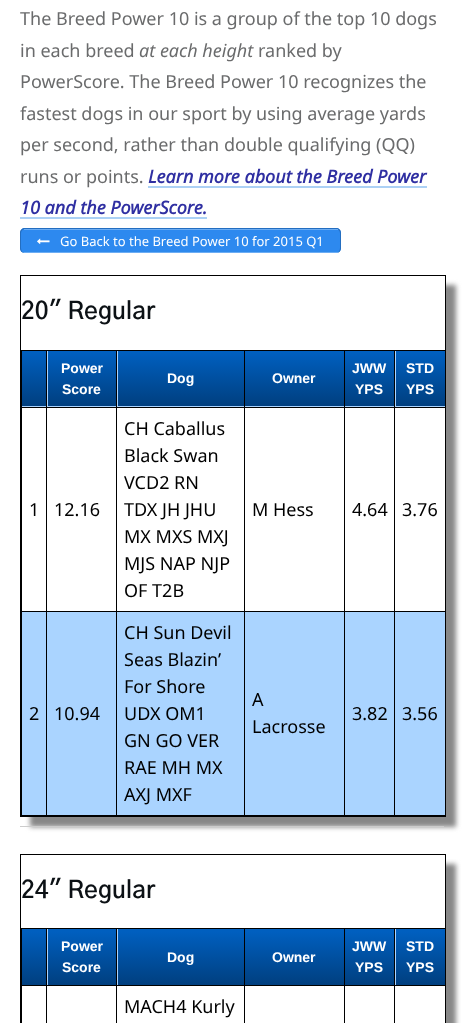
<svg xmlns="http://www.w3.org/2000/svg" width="464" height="1023">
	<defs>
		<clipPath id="clip1"><rect x="20" y="228" width="321" height="25" rx="5" /></clipPath>
		<clipPath id="clip2"><path d="M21 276H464V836H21ZM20 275H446V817H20Z" clip-rule="evenodd" /></clipPath>
		<linearGradient id="g1" gradientUnits="userSpaceOnUse" x1="22" y1="350" x2="22" y2="406"><stop offset="0.05" stop-color="#005FBF" /><stop offset="1" stop-color="#003F7F" /></linearGradient>
		<linearGradient id="g2" gradientUnits="userSpaceOnUse" x1="48" y1="350" x2="48" y2="406"><stop offset="0.05" stop-color="#005FBF" /><stop offset="1" stop-color="#003F7F" /></linearGradient>
		<linearGradient id="g3" gradientUnits="userSpaceOnUse" x1="118" y1="350" x2="118" y2="406"><stop offset="0.05" stop-color="#005FBF" /><stop offset="1" stop-color="#003F7F" /></linearGradient>
		<linearGradient id="g4" gradientUnits="userSpaceOnUse" x1="245" y1="350" x2="245" y2="406"><stop offset="0.05" stop-color="#005FBF" /><stop offset="1" stop-color="#003F7F" /></linearGradient>
		<linearGradient id="g5" gradientUnits="userSpaceOnUse" x1="345" y1="350" x2="345" y2="406"><stop offset="0.05" stop-color="#005FBF" /><stop offset="1" stop-color="#003F7F" /></linearGradient>
		<linearGradient id="g6" gradientUnits="userSpaceOnUse" x1="396" y1="350" x2="396" y2="406"><stop offset="0.05" stop-color="#005FBF" /><stop offset="1" stop-color="#003F7F" /></linearGradient>
		<clipPath id="clip3"><rect x="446" y="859" width="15" height="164" /></clipPath>
		<linearGradient id="g7" gradientUnits="userSpaceOnUse" x1="22" y1="929" x2="22" y2="985"><stop offset="0.05" stop-color="#005FBF" /><stop offset="1" stop-color="#003F7F" /></linearGradient>
		<linearGradient id="g8" gradientUnits="userSpaceOnUse" x1="48" y1="929" x2="48" y2="985"><stop offset="0.05" stop-color="#005FBF" /><stop offset="1" stop-color="#003F7F" /></linearGradient>
		<linearGradient id="g9" gradientUnits="userSpaceOnUse" x1="118" y1="929" x2="118" y2="985"><stop offset="0.05" stop-color="#005FBF" /><stop offset="1" stop-color="#003F7F" /></linearGradient>
		<linearGradient id="g10" gradientUnits="userSpaceOnUse" x1="245" y1="929" x2="245" y2="985"><stop offset="0.05" stop-color="#005FBF" /><stop offset="1" stop-color="#003F7F" /></linearGradient>
		<linearGradient id="g11" gradientUnits="userSpaceOnUse" x1="345" y1="929" x2="345" y2="985"><stop offset="0.05" stop-color="#005FBF" /><stop offset="1" stop-color="#003F7F" /></linearGradient>
		<linearGradient id="g12" gradientUnits="userSpaceOnUse" x1="396" y1="929" x2="396" y2="985"><stop offset="0.05" stop-color="#005FBF" /><stop offset="1" stop-color="#003F7F" /></linearGradient>
	</defs>
	<rect width="100%" height="100%" fill="#FFFFFF" />
	<g font-family="Noto Sans" font-size="18" fill="#6A6B6C">
		<text x="20" y="25">The Breed Power 10 is a group of the top 10 dogs</text>
		<text x="20" y="57">in each breed</text>
	</g>
	<text x="139" y="57" font-family="Noto Sans" font-size="18" font-style="italic" fill="#6A6B6C">at each height</text>
	<g font-family="Noto Sans" font-size="18" fill="#6A6B6C">
		<text x="258" y="57">ranked by</text>
		<text x="20" y="88">PowerScore. The Breed Power 10 recognizes the</text>
		<text x="20" y="120">fastest dogs in our sport by using average yards</text>
		<text x="20" y="151">per second, rather than double qualifying (QQ)</text>
		<text x="20" y="183">runs or points.</text>
	</g>
	<text x="148" y="183" font-family="Noto Sans" font-size="18" font-weight="700" font-style="italic" fill="#2F2FA2">Learn more about the Breed Power</text>
	<rect x="148" y="186" width="279" height="2" fill="#ACD1F5" />
	<text x="20" y="214" font-family="Noto Sans" font-size="18" font-weight="700" font-style="italic" fill="#2F2FA2">10 and the PowerScore.</text>
	<rect x="20" y="217" width="187" height="2" fill="#ACD1F5" />
	<rect x="20" y="228" width="321" height="25" rx="5" fill="#2D89EF" />
	<g clip-path="url(#clip1)">
		<rect x="20" y="251" width="321" height="2" fill="#2F8BE7" fill-opacity="0.4" />
	</g>
	<path d="M25 228H336C339 228 341 230 341 233V248C341 251 339 253 336 253H25C22 253 20 251 20 248V233C20 230 22 228 25 228ZM25 229H336C338 229 340 231 340 233V248C340 251 338 253 336 253H25C23 253 21 251 21 248V233C21 231 23 229 25 229Z" fill="#246EC0" fill-rule="evenodd" />
	<rect x="24" y="229" width="314" height="1" fill="#6CADF4" />
	<rect x="24" y="252" width="314" height="1" fill="#6CADF4" />
	<image x="37" y="238" width="13" height="6" href="assets/img1.png" />
	<text x="60" y="246" font-family="Noto Sans" font-size="13" fill="#FFFFFF">Go Back to the Breed Power 10 for 2015 Q1</text>
	<g clip-path="url(#clip2)">
		<rect x="30" y="285" width="426" height="542" fill="#888888" filter="blur(2.5px)" />
	</g>
	<rect x="20.5" y="275.5" width="425" height="541" fill="none" stroke="#000000" />
	<text x="21" y="319" font-family="'Gothic A1'" font-size="24" font-weight="600" fill="#0C1115">20″ Regular</text>
	<rect x="21" y="350" width="425" height="1" fill="#000000" />
	<rect x="21" y="815" width="425" height="1" fill="#000000" />
	<rect x="21" y="350" width="1" height="466" fill="#000000" />
	<rect x="22" y="351" width="423" height="56" fill="#AAD4FF" />
	<rect x="22" y="351" width="24" height="55" fill="url(#g1)" />
	<rect x="22" y="612" width="423" height="203" fill="#AAD4FF" />
	<rect x="394" y="611" width="1" height="205" fill="#000000" />
	<rect x="394" y="611" width="52" height="1" fill="#000000" />
	<rect x="394" y="407" width="1" height="205" fill="#000000" />
	<rect x="394" y="407" width="52" height="1" fill="#000000" />
	<rect x="394" y="350" width="1" height="58" fill="#000000" />
	<rect x="344" y="611" width="1" height="205" fill="#000000" />
	<rect x="344" y="611" width="51" height="1" fill="#000000" />
	<rect x="344" y="407" width="1" height="205" fill="#000000" />
	<rect x="344" y="407" width="51" height="1" fill="#000000" />
	<rect x="344" y="350" width="1" height="58" fill="#000000" />
	<rect x="244" y="611" width="1" height="205" fill="#000000" />
	<rect x="244" y="611" width="101" height="1" fill="#000000" />
	<rect x="244" y="407" width="1" height="205" fill="#000000" />
	<rect x="244" y="407" width="101" height="1" fill="#000000" />
	<rect x="244" y="350" width="1" height="58" fill="#000000" />
	<rect x="116" y="611" width="1" height="205" fill="#000000" />
	<rect x="116" y="611" width="129" height="1" fill="#000000" />
	<rect x="116" y="407" width="1" height="205" fill="#000000" />
	<rect x="116" y="407" width="129" height="1" fill="#000000" />
	<rect x="116" y="350" width="1" height="58" fill="#000000" />
	<rect x="46" y="611" width="1" height="205" fill="#000000" />
	<rect x="46" y="611" width="71" height="1" fill="#000000" />
	<rect x="46" y="407" width="1" height="205" fill="#000000" />
	<rect x="46" y="407" width="71" height="1" fill="#000000" />
	<rect x="46" y="350" width="1" height="58" fill="#000000" />
	<rect x="21" y="407" width="26" height="1" fill="#000000" />
	<rect x="48" y="351" width="68" height="55" fill="url(#g2)" />
	<g font-family="Liberation Sans" font-size="14" font-weight="700" fill="#FFFFFF">
		<text x="61" y="373">Power</text>
		<text x="62" y="394">Score</text>
	</g>
	<rect x="118" y="351" width="126" height="55" fill="url(#g3)" />
	<text x="167" y="383" font-family="Liberation Sans" font-size="14" font-weight="700" fill="#FFFFFF">Dog</text>
	<rect x="245" y="351" width="99" height="55" fill="url(#g4)" />
	<text x="272" y="383" font-family="Liberation Sans" font-size="14" font-weight="700" fill="#FFFFFF">Owner</text>
	<rect x="345" y="351" width="49" height="55" fill="url(#g5)" />
	<g font-family="Liberation Sans" font-size="14" font-weight="700" fill="#FFFFFF">
		<text x="352" y="373">JWW</text>
		<text x="355" y="394">YPS</text>
	</g>
	<rect x="396" y="351" width="49" height="55" fill="url(#g6)" />
	<g font-family="Liberation Sans" font-size="14" font-weight="700" fill="#FFFFFF">
		<text x="406" y="373">STD</text>
		<text x="406" y="394">YPS</text>
	</g>
	<rect x="21" y="611" width="26" height="1" fill="#000000" />
	<g font-family="Noto Sans" font-size="18" fill="#000000">
		<text x="29" y="516">1</text>
		<text x="54" y="516">12.16</text>
		<text x="124" y="435">CH Caballus</text>
		<text x="124" y="462">Black Swan</text>
		<text x="124" y="489">VCD2 RN</text>
		<text x="124" y="516">TDX JH JHU</text>
		<text x="124" y="543">MX MXS MXJ</text>
		<text x="124" y="570">MJS NAP NJP</text>
		<text x="124" y="597">OF T2B</text>
		<text x="252" y="516">M Hess</text>
		<text x="352" y="516">4.64</text>
		<text x="402" y="516">3.76</text>
		<text x="29" y="720">2</text>
		<text x="54" y="720">10.94</text>
		<text x="124" y="639">CH Sun Devil</text>
		<text x="124" y="666">Seas Blazin’</text>
		<text x="124" y="693">For Shore</text>
		<text x="124" y="720">UDX OM1</text>
		<text x="124" y="747">GN GO VER</text>
		<text x="124" y="774">RAE MH MX</text>
		<text x="124" y="801">AXJ MXF</text>
		<text x="252" y="706">A</text>
		<text x="252" y="733">Lacrosse</text>
		<text x="352" y="720">3.82</text>
		<text x="402" y="720">3.56</text>
	</g>
	<rect x="20" y="826" width="424" height="1" fill="#CCCCCC" />
	<g clip-path="url(#clip3)">
		<rect x="30" y="864" width="426" height="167" fill="#888888" filter="blur(2.5px)" />
	</g>
	<rect x="20.5" y="854.5" width="425" height="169" fill="none" stroke="#000000" />
	<text x="21" y="898" font-family="'Gothic A1'" font-size="24" font-weight="600" fill="#0C1115">24″ Regular</text>
	<rect x="21" y="928" width="425" height="1" fill="#000000" />
	<rect x="21" y="928" width="1" height="95" fill="#000000" />
	<rect x="47" y="929" width="349" height="56" fill="#AAD4FF" />
	<rect x="22" y="929" width="24" height="56" fill="url(#g7)" />
	<rect x="394" y="985" width="1" height="38" fill="#000000" />
	<rect x="394" y="985" width="52" height="1" fill="#000000" />
	<rect x="394" y="928" width="1" height="58" fill="#000000" />
	<rect x="344" y="985" width="1" height="38" fill="#000000" />
	<rect x="344" y="985" width="51" height="1" fill="#000000" />
	<rect x="344" y="928" width="1" height="58" fill="#000000" />
	<rect x="244" y="985" width="1" height="38" fill="#000000" />
	<rect x="244" y="985" width="101" height="1" fill="#000000" />
	<rect x="244" y="928" width="1" height="58" fill="#000000" />
	<rect x="116" y="985" width="1" height="38" fill="#000000" />
	<rect x="116" y="985" width="129" height="1" fill="#000000" />
	<rect x="116" y="928" width="1" height="58" fill="#000000" />
	<rect x="46" y="985" width="1" height="38" fill="#000000" />
	<rect x="46" y="985" width="71" height="1" fill="#000000" />
	<rect x="46" y="928" width="1" height="58" fill="#000000" />
	<rect x="21" y="985" width="26" height="1" fill="#000000" />
	<rect x="48" y="929" width="68" height="56" fill="url(#g8)" />
	<g font-family="Liberation Sans" font-size="14" font-weight="700" fill="#FFFFFF">
		<text x="61" y="951">Power</text>
		<text x="62" y="972">Score</text>
	</g>
	<rect x="118" y="929" width="126" height="56" fill="url(#g9)" />
	<text x="167" y="962" font-family="Liberation Sans" font-size="14" font-weight="700" fill="#FFFFFF">Dog</text>
	<rect x="245" y="929" width="99" height="56" fill="url(#g10)" />
	<text x="272" y="962" font-family="Liberation Sans" font-size="14" font-weight="700" fill="#FFFFFF">Owner</text>
	<rect x="345" y="929" width="49" height="56" fill="url(#g11)" />
	<g font-family="Liberation Sans" font-size="14" font-weight="700" fill="#FFFFFF">
		<text x="352" y="951">JWW</text>
		<text x="355" y="972">YPS</text>
	</g>
	<rect x="396" y="929" width="49" height="56" fill="url(#g12)" />
	<g font-family="Liberation Sans" font-size="14" font-weight="700" fill="#FFFFFF">
		<text x="406" y="951">STD</text>
		<text x="406" y="972">YPS</text>
	</g>
	<text x="124" y="1013" font-family="Noto Sans" font-size="18" fill="#000000">MACH4 Kurly</text>
</svg>
